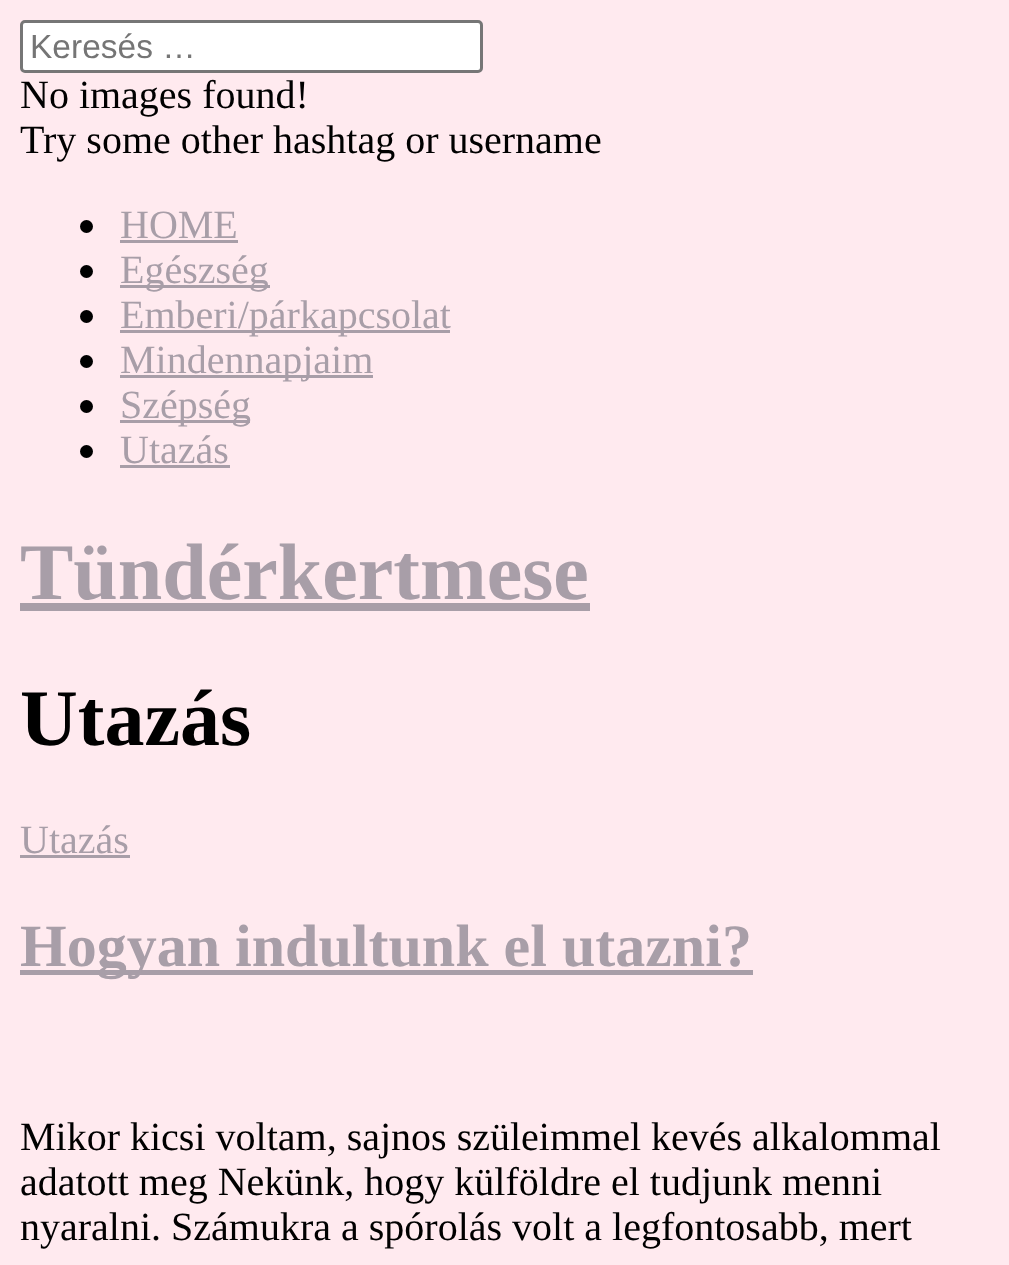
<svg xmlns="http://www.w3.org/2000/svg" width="1009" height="1265">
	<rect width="100%" height="100%" fill="#FFEAEF" />
	<rect x="21.5" y="21.5" width="460" height="50" rx="3.5" fill="#FFFFFF" stroke="#767676" stroke-width="3" />
	<text x="30" y="58" font-family="Liberation Sans" font-size="33.5" fill="#757575">Keresés …</text>
	<g font-family="Liberation Serif" font-size="40" fill="#000000">
		<text x="20" y="108">No images found!</text>
		<text x="20" y="153">Try some other hashtag or username</text>
	</g>
	<circle cx="86.5" cy="226.5" r="6.5" fill="#000000" />
	<text x="120" y="238" font-family="Liberation Serif" font-size="40" fill="#A89EA8">HOME</text>
	<rect x="120" y="240" width="118" height="3" fill="#A89EA8" />
	<circle cx="86.5" cy="271.5" r="6.5" fill="#000000" />
	<rect x="120" y="285" width="150" height="3" fill="#A89EA8" />
	<text x="120" y="283" font-family="Liberation Serif" font-size="40" fill="#A89EA8">Egészség</text>
	<circle cx="86.5" cy="316.5" r="6.5" fill="#000000" />
	<rect x="120" y="330" width="330" height="3" fill="#A89EA8" />
	<text x="120" y="328" font-family="Liberation Serif" font-size="40" fill="#A89EA8">Emberi/párkapcsolat</text>
	<circle cx="86.5" cy="361.5" r="6.5" fill="#000000" />
	<rect x="120" y="375" width="253" height="3" fill="#A89EA8" />
	<text x="120" y="373" font-family="Liberation Serif" font-size="40" fill="#A89EA8">Mindennapjaim</text>
	<circle cx="86.5" cy="406.5" r="6.5" fill="#000000" />
	<rect x="120" y="420" width="130" height="3" fill="#A89EA8" />
	<text x="120" y="418" font-family="Liberation Serif" font-size="40" fill="#A89EA8">Szépség</text>
	<circle cx="86.5" cy="451.5" r="6.5" fill="#000000" />
	<text x="120" y="463" font-family="Liberation Serif" font-size="40" fill="#A89EA8">Utazás</text>
	<rect x="120" y="465" width="110" height="3" fill="#A89EA8" />
	<text x="20" y="599" font-family="Liberation Serif" font-size="80" font-weight="700" fill="#A89EA8">Tündérkertmese</text>
	<rect x="20" y="603" width="570" height="8" fill="#A89EA8" />
	<text x="20" y="745" font-family="Liberation Serif" font-size="80" font-weight="700" fill="#000000">Utazás</text>
	<text x="20" y="853" font-family="Liberation Serif" font-size="40" fill="#A89EA8">Utazás</text>
	<rect x="20" y="855" width="110" height="3" fill="#A89EA8" />
	<rect x="20" y="970" width="733" height="5" fill="#A89EA8" />
	<text x="20" y="966" font-family="Liberation Serif" font-size="60" font-weight="700" fill="#A89EA8">Hogyan indultunk el utazni?</text>
	<g font-family="Liberation Serif" font-size="40" fill="#000000">
		<text x="20" y="1150">Mikor kicsi voltam, sajnos szüleimmel kevés alkalommal</text>
		<text x="20" y="1195">adatott meg Nekünk, hogy külföldre el tudjunk menni</text>
		<text x="20" y="1240">nyaralni. Számukra a spórolás volt a legfontosabb, mert</text>
	</g>
</svg>
